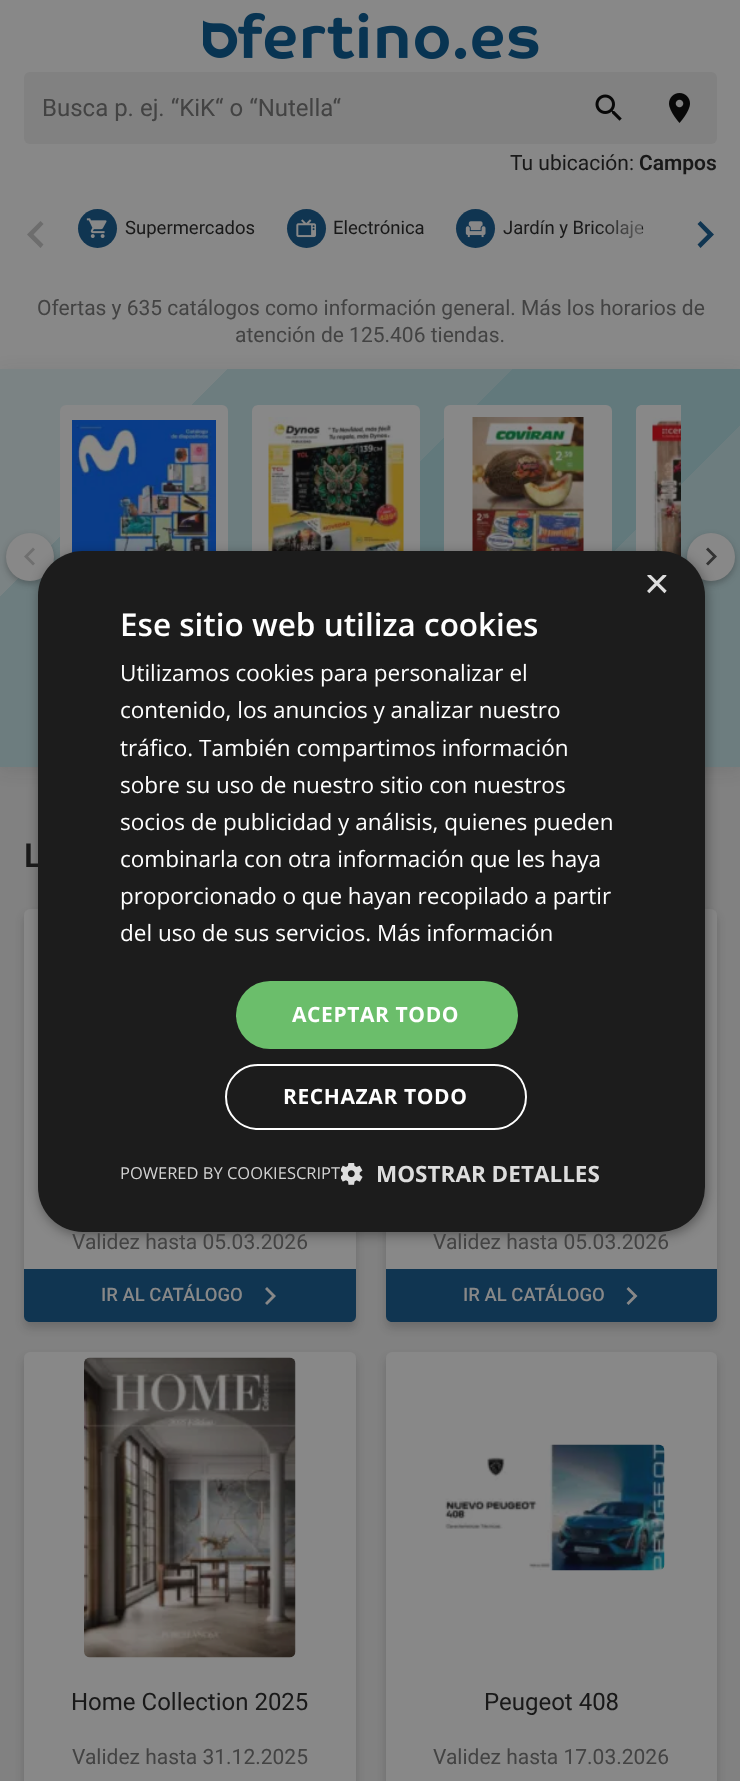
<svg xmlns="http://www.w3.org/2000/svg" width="740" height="1781">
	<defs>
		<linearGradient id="g1" gradientUnits="userSpaceOnUse" x1="669" y1="233" x2="597" y2="233"><stop offset="0" stop-color="#888888" /><stop offset="1" stop-color="#888888" stop-opacity="0" /></linearGradient>
		<linearGradient id="g2" gradientUnits="userSpaceOnUse" x1="86" y1="283" x2="655" y2="852"><stop offset="0" stop-color="#7B8384" /><stop offset="0.2" stop-color="#7B8384" /><stop offset="0.2" stop-color="#6D7D7F" /><stop offset="0.45" stop-color="#6D7D7F" /><stop offset="0.45" stop-color="#62797C" /><stop offset="0.7" stop-color="#62797C" /><stop offset="0.7" stop-color="#6D7D7F" /><stop offset="1" stop-color="#6D7D7F" /></linearGradient>
		<clipPath id="clip1"><rect x="645" y="575" width="23" height="22" /></clipPath>
	</defs>
	<rect width="100%" height="100%" fill="#818181" />
	<rect x="0" y="0" width="740" height="369" fill="#888888" />
	<image x="203" y="12" width="336" height="47" href="assets/img1.png" />
	<rect x="24" y="72" width="693" height="72" rx="6" fill="#818181" />
	<text x="42" y="116" font-family="Roboto" font-size="24" fill="#434343">Busca p. ej. “KiK“ o “Nutella“</text>
	<image x="595" y="94" width="27" height="27" href="assets/img2.png" />
	<image x="669" y="93" width="21" height="30" href="assets/img3.png" />
	<text x="510" y="170" font-family="Roboto" font-size="21" fill="#191919">Tu ubicación:</text>
	<text x="639" y="170" font-family="Roboto" font-size="21" font-weight="600" fill="#191919">Campos</text>
	<circle cx="97.5" cy="228.5" r="19.5" fill="#103551" />
	<image x="86" y="218" width="21" height="20" href="assets/img4.png" />
	<text x="125" y="234" font-family="Roboto" font-size="18.5" fill="#191919">Supermercados</text>
	<circle cx="306.5" cy="228.5" r="19.5" fill="#103551" />
	<image x="296" y="219" width="21" height="19" href="assets/img5.png" />
	<text x="333" y="234" font-family="Roboto" font-size="18.5" fill="#191919">Electrónica</text>
	<circle cx="475.5" cy="228.5" r="19.5" fill="#103551" />
	<image x="465" y="221" width="21" height="17" href="assets/img6.png" />
	<text x="503" y="234" font-family="Roboto" font-size="18.5" fill="#191919">Jardín y Bricolaje</text>
	<path d="M43.5 244.5L33.5 234.5L43.5 224L40.5 221L27 234.5L40.5 248Z" fill="#6D6D6D" />
	<rect x="599" y="220" width="43" height="18" fill="url(#g1)" />
	<path d="M697.5 244.5L707.5 234.5L697.5 224L700.5 221L714 234.5L700.5 248Z" fill="#103551" />
	<g font-family="Roboto" font-size="21" fill="#434343">
		<text x="37" y="315">Ofertas y 635 catálogos como información general. Más los horarios de</text>
		<text x="235" y="342">atención de 125.406 tiendas.</text>
	</g>
	<rect x="0" y="372" width="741" height="398" fill="#191919" fill-opacity="0.1" filter="blur(9px)" />
	<rect x="0" y="369" width="740" height="398" fill="url(#g2)" />
	<rect x="60" y="405" width="168" height="216" rx="6" fill="#888888" />
	<rect x="6" y="536" width="48" height="48" rx="24" fill="#191919" fill-opacity="0.3" filter="blur(3px)" />
	<circle cx="30" cy="557" r="24" fill="#888888" />
	<path d="M35 563.5L28 556.5L35 549.5L33 547.5L24 556.5L33 565.5Z" fill="#6F6F6F" />
	<image x="72" y="420" width="144" height="133" href="assets/img7.png" />
	<rect x="252" y="405" width="168" height="216" rx="6" fill="#888888" />
	<image x="268" y="417" width="136" height="134" href="assets/img8.png" />
	<rect x="444" y="405" width="168" height="216" rx="6" fill="#888888" />
	<image x="472" y="417" width="112" height="134" href="assets/img9.png" />
	<path d="M642 405H681V621H642C638.5 621 636 618.5 636 615V411C636 407.5 638.5 405 642 405Z" fill="#888888" />
	<image x="652" y="417" width="29" height="140" href="assets/img10.png" />
	<rect x="687" y="536" width="48" height="48" rx="24" fill="#191919" fill-opacity="0.3" filter="blur(3px)" />
	<circle cx="711" cy="557" r="24" fill="#888888" />
	<path d="M706 563.5L713 556.5L706 549.5L708 547.5L717 556.5L708 565.5Z" fill="#333333" />
	<rect x="24" y="915" width="332" height="413" rx="6" fill="#191919" fill-opacity="0.2" filter="blur(4.5px)" />
	<rect x="24" y="909" width="332" height="413" rx="6" fill="#888888" />
	<rect x="386" y="915" width="331" height="413" rx="6" fill="#191919" fill-opacity="0.2" filter="blur(4.5px)" />
	<rect x="386" y="909" width="331" height="413" rx="6" fill="#888888" />
	<rect x="39" y="554" width="668" height="681" rx="45" fill="#000000" fill-opacity="0.35" filter="blur(6px)" />
	<text x="24" y="867" font-family="Roboto" font-size="33" font-weight="600" fill="#191919">L</text>
	<rect x="38" y="551" width="667" height="681" rx="45" fill="#1C1C1C" />
	<g clip-path="url(#clip1)">
		<text x="644" y="598" font-family="Liberation Sans" font-size="44" fill="#DDDDDD">×</text>
	</g>
	<text x="120" y="636" font-family="Open Sans" font-size="31.5" font-weight="600" fill="#FFFFFF">Ese sitio web utiliza cookies</text>
	<g font-family="Open Sans" font-size="22.5" fill="#FFFFFF">
		<text x="120" y="681">Utilizamos cookies para personalizar el</text>
		<text x="120" y="718">contenido, los anuncios y analizar nuestro</text>
		<text x="120" y="756">tráfico. También compartimos información</text>
		<text x="120" y="793">sobre su uso de nuestro sitio con nuestros</text>
		<text x="120" y="830">socios de publicidad y análisis, quienes pueden</text>
		<text x="120" y="867">combinarla con otra información que les haya</text>
		<text x="120" y="904">proporcionado o que hayan recopilado a partir</text>
		<text x="120" y="941">del uso de sus servicios. Más información</text>
	</g>
	<rect x="236" y="981" width="282" height="68" rx="34" fill="#6BBE6B" />
	<text x="292" y="1022" font-family="Open Sans" font-size="21" font-weight="700" letter-spacing="0.6" fill="#FFFFFF">ACEPTAR TODO</text>
	<rect x="226" y="1065" width="300" height="64" rx="32" fill="none" stroke="#FFFFFF" stroke-width="2" />
	<text x="283" y="1104" font-family="Open Sans" font-size="21" font-weight="700" letter-spacing="0.6" fill="#FFFFFF">RECHAZAR TODO</text>
	<text x="120" y="1179" font-family="Open Sans" font-size="16.5" fill="#D2D2D2">POWERED BY COOKIESCRIPT</text>
	<image x="341" y="1163" width="22" height="22" href="assets/img11.png" />
	<text x="376" y="1182" font-family="Open Sans" font-size="22.5" font-weight="700" fill="#DDDDDD">MOSTRAR DETALLES</text>
	<text x="72" y="1249" font-family="Roboto" font-size="21" fill="#434343">Validez hasta 05.03.2026</text>
	<path d="M24 1269H356V1316C356 1319.5 353.5 1322 350 1322H30C26.5 1322 24 1319.5 24 1316Z" fill="#103551" />
	<text x="101" y="1301" font-family="Roboto" font-size="18.5" font-weight="500" fill="#888888">IR AL CATÁLOGO</text>
	<path d="M265 1303L272 1296L265 1289L267 1287L276 1296L267 1305Z" fill="#888888" />
	<text x="433" y="1249" font-family="Roboto" font-size="21" fill="#434343">Validez hasta 05.03.2026</text>
	<path d="M386 1269H717V1316C717 1319.5 714.5 1322 711 1322H392C388.5 1322 386 1319.5 386 1316Z" fill="#103551" />
	<text x="463" y="1301" font-family="Roboto" font-size="18.5" font-weight="500" fill="#888888">IR AL CATÁLOGO</text>
	<path d="M626.5 1303L633.5 1296L626.5 1289L628.5 1287L637.5 1296L628.5 1305Z" fill="#888888" />
	<rect x="24" y="1358" width="332" height="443" rx="6" fill="#191919" fill-opacity="0.2" filter="blur(4.5px)" />
	<rect x="24" y="1352" width="332" height="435" rx="6" fill="#888888" />
	<image x="84" y="1357" width="212" height="301" href="assets/img12.png" />
	<text x="71" y="1710" font-family="Roboto" font-size="24" fill="#191919">Home Collection 2025</text>
	<text x="72" y="1764" font-family="Roboto" font-size="21" fill="#434343">Validez hasta 31.12.2025</text>
	<rect x="386" y="1358" width="331" height="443" rx="6" fill="#191919" fill-opacity="0.2" filter="blur(4.5px)" />
	<rect x="386" y="1352" width="331" height="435" rx="6" fill="#888888" />
	<image x="445" y="1444" width="220" height="127" href="assets/img13.png" />
	<text x="484" y="1710" font-family="Roboto" font-size="24" fill="#191919">Peugeot 408</text>
	<text x="433" y="1764" font-family="Roboto" font-size="21" fill="#434343">Validez hasta 17.03.2026</text>
</svg>
